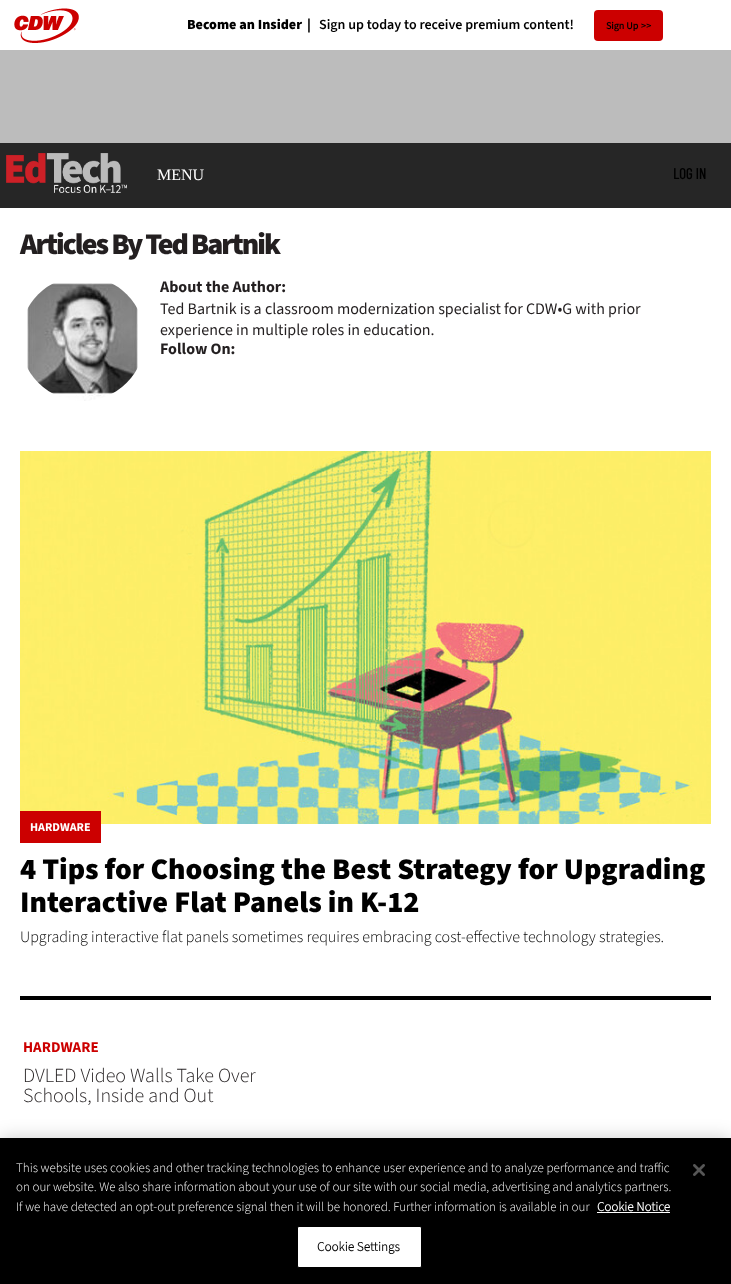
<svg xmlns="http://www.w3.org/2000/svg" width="731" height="1284">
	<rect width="100%" height="100%" fill="#FFFFFF" />
	<image x="14" y="8" width="65" height="35" href="assets/img1.png" />
	<g font-family="'Source Sans 3'" font-size="14" font-weight="900" fill="#000000">
		<text x="187" y="29">Become an Insider</text>
		<text x="307" y="29">|</text>
	</g>
	<text x="319" y="29" font-family="'Source Sans 3'" font-size="14" font-weight="600" fill="#000000">Sign up today to receive premium content!</text>
	<rect x="594" y="10" width="69" height="31" rx="4" fill="#CC0000" />
	<text x="606" y="29" font-family="'Source Sans 3'" font-size="10" font-weight="700" fill="#000000">Sign Up</text>
	<text x="641" y="29" font-family="'Source Sans 3'" font-size="10" font-weight="600" fill="#000000">&gt;&gt;</text>
	<rect x="0" y="50" width="731" height="93" fill="#BCBCBC" />
	<rect x="0" y="143" width="731" height="65" fill="#262626" />
	<image x="6" y="153" width="121" height="40" href="assets/img2.png" />
	<text x="157" y="180" font-family="Liberation Serif" font-size="16" fill="#FFFFFF">MENU</text>
	<text x="673" y="179" font-family="Barlow Condensed" font-size="15" font-weight="700" fill="#000000">LOG IN</text>
	<text x="20" y="254" font-family="'Source Sans 3'" font-size="30" font-weight="900" letter-spacing="-2" fill="#231F20">Articles By Ted Bartnik</text>
	<image x="27" y="283" width="111" height="118" href="assets/img3.png" />
	<text x="160" y="292" font-family="'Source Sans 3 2'" font-size="16" font-weight="700" fill="#231F20">About the Author:</text>
	<g font-family="'Source Sans 3'" font-size="16" fill="#231F20">
		<text x="160" y="314">Ted Bartnik is a classroom modernization specialist for CDW•G with prior</text>
		<text x="160" y="335">experience in multiple roles in education.</text>
	</g>
	<text x="160" y="354" font-family="'Source Sans 3 2'" font-size="16" font-weight="700" fill="#231F20">Follow On:</text>
	<rect x="20" y="996" width="691" height="4" fill="#000000" />
	<image x="20" y="451" width="691" height="373" href="assets/img4.png" />
	<rect x="20" y="811" width="81" height="32" fill="#CC0000" />
	<text x="30" y="831" font-family="'Source Sans 3 2'" font-size="12" font-weight="700" fill="#FFFFFF">HARDWARE</text>
	<g font-family="'Source Sans 3'" font-size="30" font-weight="900" fill="#000000">
		<text x="20" y="879">4 Tips for Choosing the Best Strategy for Upgrading</text>
		<text x="20" y="912">Interactive Flat Panels in K-12</text>
	</g>
	<text x="20" y="942" font-family="'Source Sans 3'" font-size="16" font-weight="300" fill="#000000">Upgrading interactive flat panels sometimes requires embracing cost-effective technology strategies.</text>
	<text x="23" y="1052" font-family="'Source Sans 3 2'" font-size="15" font-weight="700" fill="#CC0000">HARDWARE</text>
	<g font-family="'Source Sans 3'" font-size="20" font-weight="300" fill="#231F20">
		<text x="23" y="1082">DVLED Video Walls Take Over</text>
		<text x="23" y="1102">Schools, Inside and Out</text>
	</g>
	<rect x="0" y="1138" width="731" height="146" fill="#000000" fill-opacity="0.2" filter="blur(9px)" />
	<rect x="0" y="1138" width="731" height="146" fill="#000000" />
	<g font-family="'Source Sans 3'" font-size="13" font-weight="300" fill="#FFFFFF">
		<text x="16" y="1172">This website uses cookies and other tracking technologies to enhance user experience and to analyze performance and traffic</text>
		<text x="16" y="1191">on our website. We also share information about your use of our site with our social media, advertising and analytics partners.</text>
		<text x="16" y="1211">If we have detected an opt-out preference signal then it will be honored. Further information is available in our</text>
	</g>
	<text x="597" y="1211" font-family="'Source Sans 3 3'" font-size="13" font-weight="700" fill="#FFFFFF">Cookie Notice</text>
	<rect x="597" y="1212" width="73" height="1" fill="#FFFFFF" />
	<rect x="297.5" y="1226.5" width="124" height="41" rx="1.5" fill="#FFFFFF" stroke="#000000" />
	<text x="317" y="1251" font-family="'Source Sans 3 3'" font-size="13" font-weight="700" letter-spacing="0.1" fill="#000000">Cookie Settings</text>
	<image x="693" y="1164" width="12" height="12" href="assets/img5.png" />
</svg>
